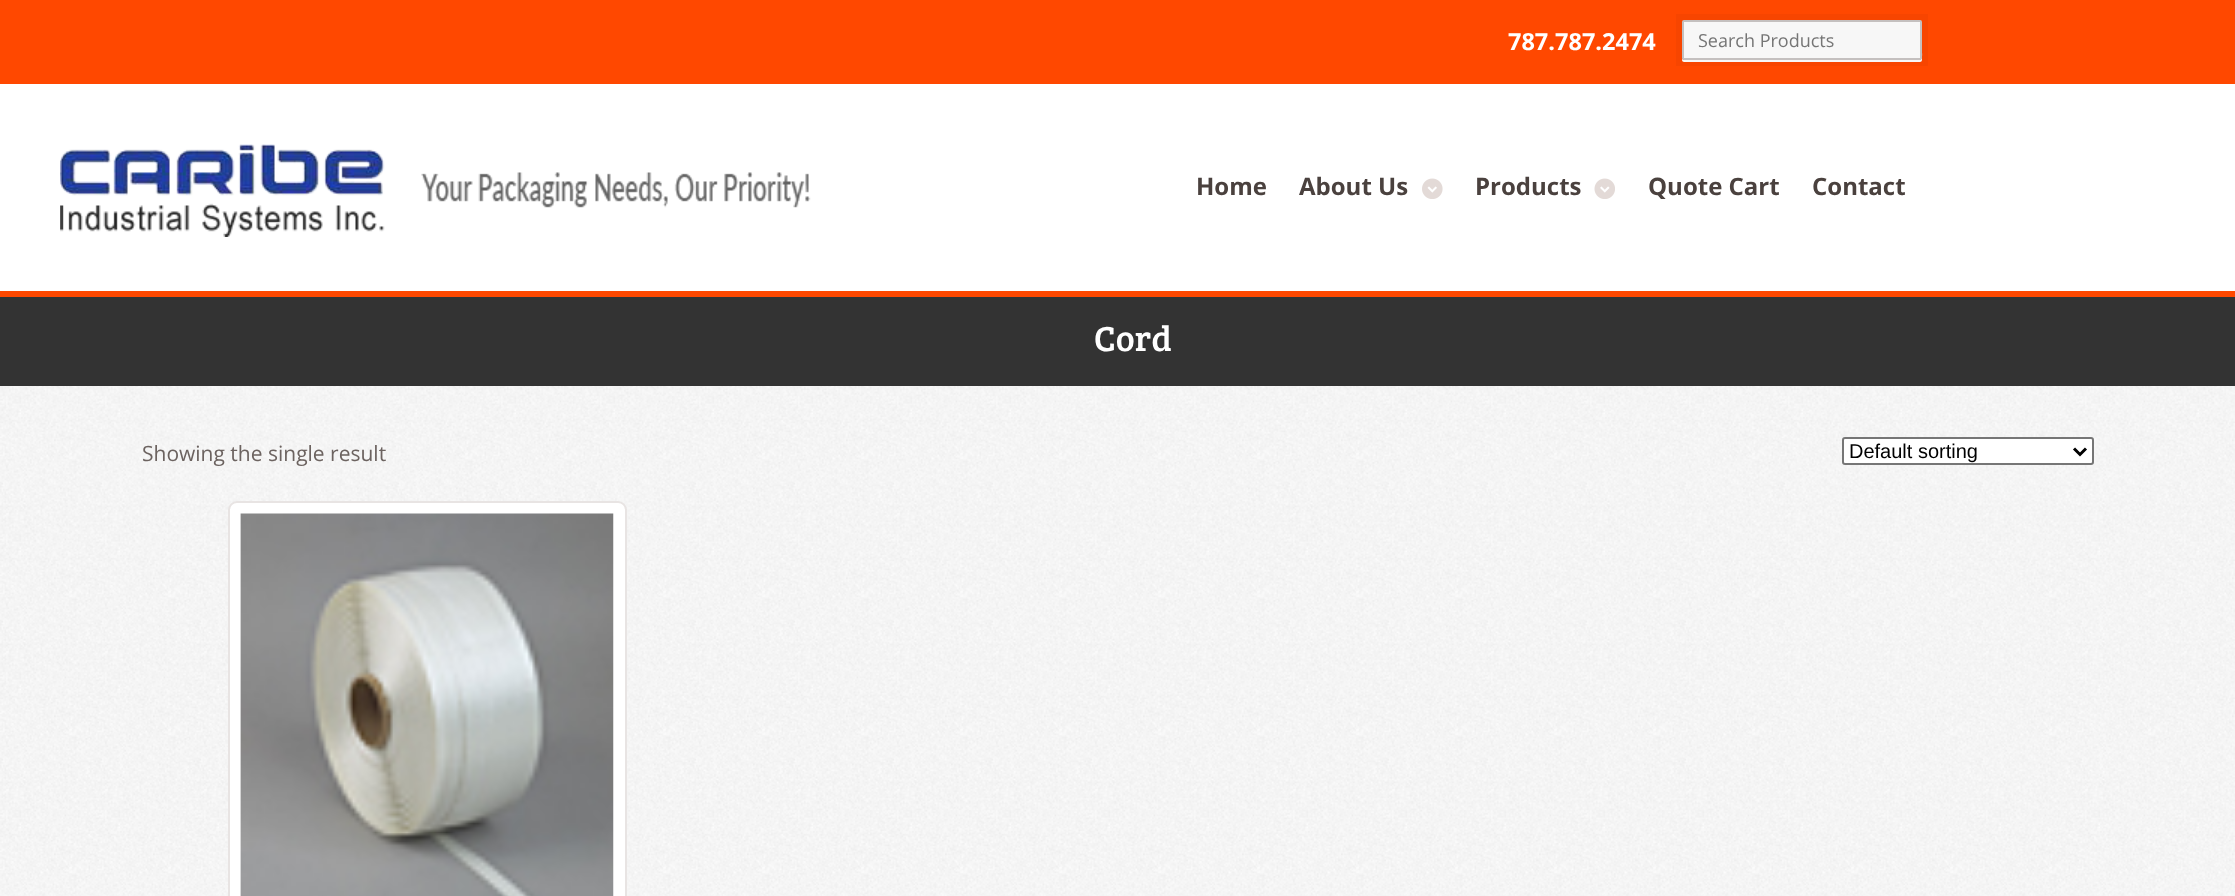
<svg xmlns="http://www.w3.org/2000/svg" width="2235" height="896">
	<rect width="100%" height="100%" fill="#FFFFFF" />
	<image x="0" y="386" width="2235" height="510" href="assets/img1.png" />
	<rect x="0" y="0" width="2235" height="84" fill="#FF4800" />
	<text x="1508" y="50" font-family="Open Sans" font-size="23.5" font-weight="700" fill="#FFFFFF">787.787.2474</text>
	<path d="M1682 59V60C1682 61 1683 62 1684 62H1920C1921 62 1922 61 1922 60V23L1921 22L1922 52C1922 53 1923 60 1919 60H1684Z" fill="#FFFFFF" />
	<rect x="1679" y="17" width="246" height="46" fill="none" stroke="#000000" stroke-opacity="0.03" stroke-width="6" />
	<rect x="1683" y="21" width="238" height="38" rx="1" fill="#F7F7F7" stroke="#C4C0BF" stroke-width="2" />
	<text x="1698" y="47" font-family="Open Sans" font-size="18" fill="#757575">Search Products</text>
	<rect x="0" y="291" width="2235" height="6" fill="#FF4800" />
	<image x="60" y="144" width="751" height="93" href="assets/img2.png" />
	<g font-family="Open Sans" font-size="24" font-weight="700" fill="#4A413E">
		<text x="1196" y="195">Home</text>
		<text x="1299" y="195">About Us</text>
	</g>
	<image x="1422" y="178" width="21" height="21" href="assets/img3.png" />
	<text x="1475" y="195" font-family="Open Sans" font-size="24" font-weight="700" fill="#4A413E">Products</text>
	<image x="1594" y="178" width="21" height="21" href="assets/img4.png" />
	<g font-family="Open Sans" font-size="24" font-weight="700" fill="#4A413E">
		<text x="1648" y="195">Quote Cart</text>
		<text x="1812" y="195">Contact</text>
	</g>
	<rect x="0" y="297" width="2235" height="89" fill="#333333" />
	<text x="1094" y="351" font-family="Bree Serif" font-size="36" fill="#FFFFFF">Cord</text>
	<text x="142" y="461" font-family="Open Sans" font-size="21" fill="#6C6360">Showing the single result</text>
	<rect x="1843" y="438" width="250" height="26" rx="2" fill="#FFFFFF" stroke="#767676" stroke-width="2" />
	<path d="M2074 448.5L2080 454.5L2086 448.5" fill="none" stroke="#000000" stroke-width="3" />
	<text x="1849" y="458" font-family="Liberation Sans" font-size="20" fill="#000000">Default sorting</text>
	<rect x="229" y="502" width="397" height="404" rx="8" fill="#FFFFFF" stroke="#E8E4E3" stroke-width="2" />
	<image x="240" y="513" width="374" height="383" href="assets/img5.png" />
</svg>
